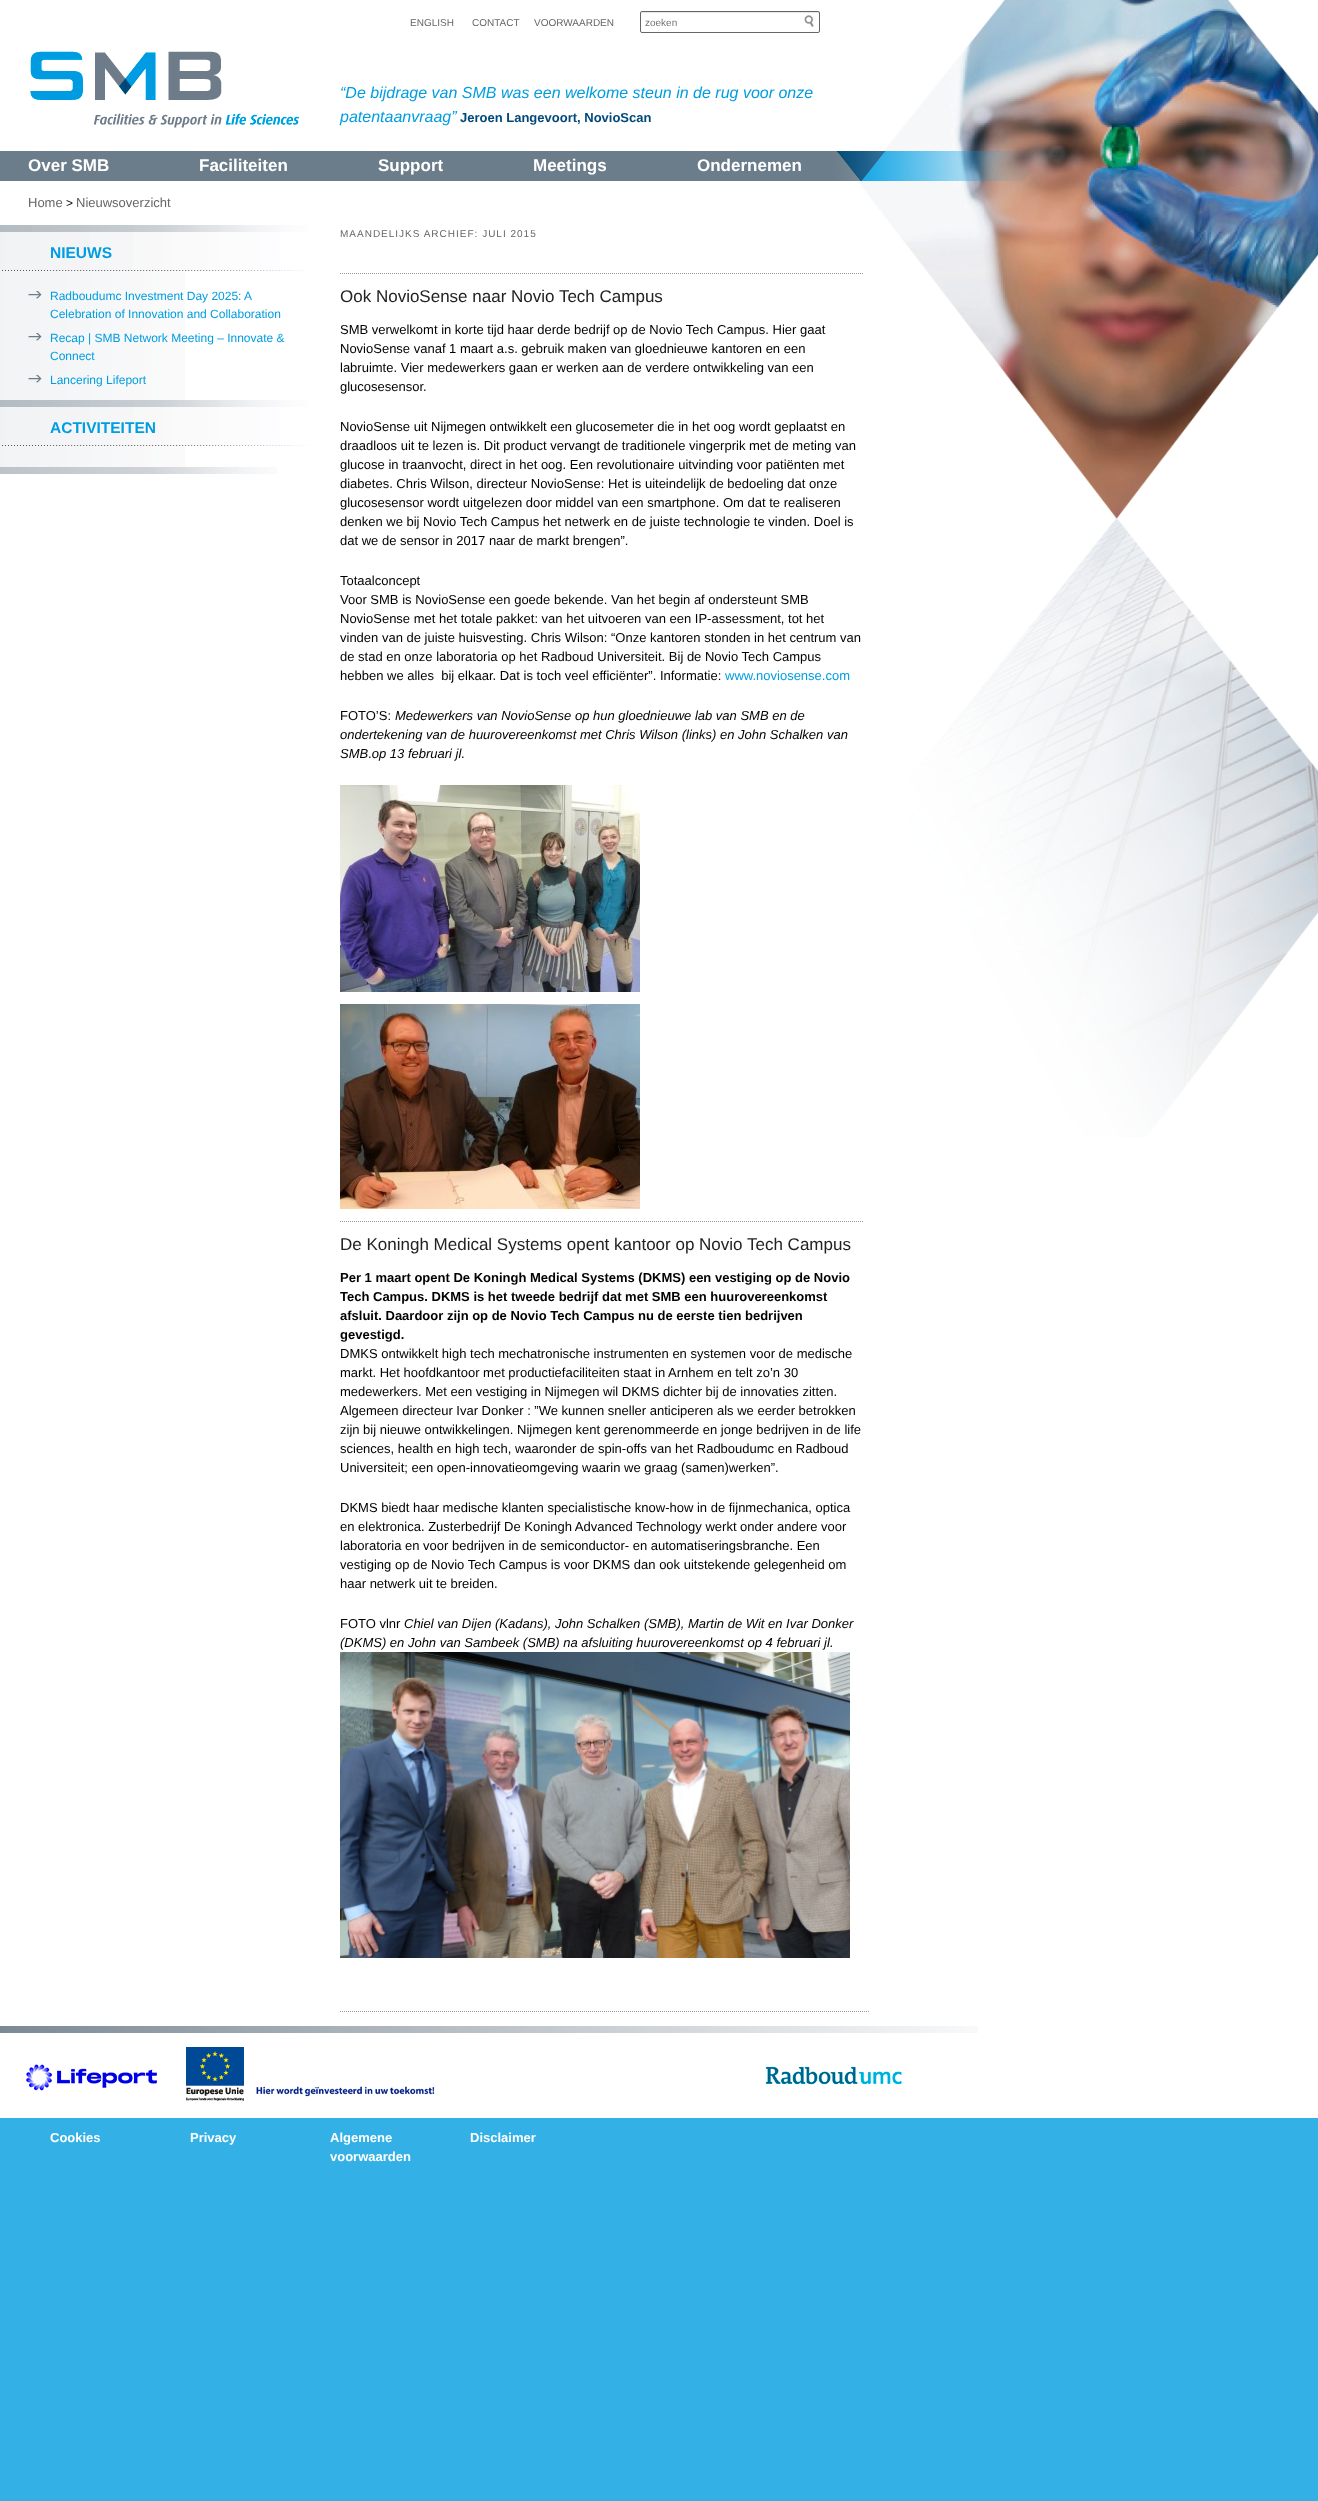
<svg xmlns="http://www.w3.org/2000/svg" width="1318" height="2501">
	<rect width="100%" height="100%" fill="#33B1E6" />
	<rect x="0" y="0" width="1318" height="2118" fill="#FFFFFF" />
	<image x="859" y="0" width="459" height="1137" href="assets/img1.png" />
	<g font-family="Liberation Sans" font-size="10" fill="#666666">
		<text x="410" y="26">ENGLISH</text>
		<text x="472" y="26">CONTACT</text>
		<text x="534" y="26">VOORWAARDEN</text>
	</g>
	<image x="804" y="15" width="10" height="12" href="assets/img2.png" />
	<path d="M642 13H818C819 13 819 13 819 14V12H642C641 12 641 13 641 14C641 13 641 13 642 13Z" fill="#E6E6E6" />
	<rect x="640.5" y="11.5" width="179" height="21" rx="1.5" fill="none" stroke="#666666" />
	<text x="645" y="26" font-family="Liberation Sans" font-size="10" fill="#757575">zoeken</text>
	<image x="30" y="51" width="269" height="77" href="assets/img3.png" />
	<g font-family="Liberation Sans" font-size="16" font-style="italic" fill="#009DE0">
		<text x="340" y="98">“De bijdrage van SMB was een welkome steun in de rug voor onze</text>
		<text x="340" y="122">patentaanvraag”</text>
	</g>
	<text x="460" y="122" font-family="Liberation Sans" font-size="13" font-weight="700" fill="#004879">Jeroen Langevoort, NovioScan</text>
	<image x="0" y="151" width="1031" height="30" href="assets/img4.png" />
	<g font-family="Liberation Sans" font-size="17" font-weight="700" fill="#FFFFFF">
		<text x="28" y="171">Over SMB</text>
		<text x="199" y="171">Faciliteiten</text>
		<text x="378" y="171">Support</text>
		<text x="533" y="171">Meetings</text>
		<text x="697" y="171">Ondernemen</text>
	</g>
	<text x="28" y="207" font-family="Liberation Sans" font-size="13" fill="#666666">Home</text>
	<text x="66" y="207" font-family="Liberation Sans" font-size="12" fill="#000000">&gt;</text>
	<text x="76" y="207" font-family="Liberation Sans" font-size="13" fill="#666666">Nieuwsoverzicht</text>
	<image x="0" y="271" width="185" height="129" href="assets/img5.png" />
	<image x="0" y="225" width="309" height="46" href="assets/img6.png" />
	<text x="50" y="258" font-family="Liberation Sans" font-size="15.5" font-weight="700" fill="#009DE0">NIEUWS</text>
	<image x="28" y="291" width="14" height="8" href="assets/img7.png" />
	<g font-family="Liberation Sans" font-size="12" fill="#009DE0">
		<text x="50" y="300">Radboudumc Investment Day 2025: A</text>
		<text x="50" y="318">Celebration of Innovation and Collaboration</text>
	</g>
	<image x="28" y="333" width="14" height="8" href="assets/img7.png" />
	<g font-family="Liberation Sans" font-size="12" fill="#009DE0">
		<text x="50" y="342">Recap | SMB Network Meeting – Innovate &amp;</text>
		<text x="50" y="360">Connect</text>
	</g>
	<image x="28" y="375" width="14" height="8" href="assets/img7.png" />
	<text x="50" y="384" font-family="Liberation Sans" font-size="12" fill="#009DE0">Lancering Lifeport</text>
	<image x="0" y="446" width="185" height="21" href="assets/img8.png" />
	<image x="0" y="400" width="309" height="46" href="assets/img6.png" />
	<text x="50" y="433" font-family="Liberation Sans" font-size="15.5" font-weight="700" fill="#009DE0">ACTIVITEITEN</text>
	<image x="0" y="467" width="277" height="7" href="assets/img9.png" />
	<text x="340" y="237" font-family="Liberation Sans" font-size="10" letter-spacing="1" fill="#666666">MAANDELIJKS ARCHIEF: JULI 2015</text>
	<path d="M340 273.5H864" fill="none" stroke="#999999" stroke-dasharray="1 1" />
	<text x="340" y="302" font-family="Liberation Sans" font-size="17" fill="#222222">Ook NovioSense naar Novio Tech Campus</text>
	<g font-family="Liberation Sans" font-size="13" fill="#000000">
		<text x="340" y="334">SMB verwelkomt in korte tijd haar derde bedrijf op de Novio Tech Campus. Hier gaat</text>
		<text x="340" y="353">NovioSense vanaf 1 maart a.s. gebruik maken van gloednieuwe kantoren en een</text>
		<text x="340" y="372">labruimte. Vier medewerkers gaan er werken aan de verdere ontwikkeling van een</text>
		<text x="340" y="391">glucosesensor.</text>
		<text x="340" y="431">NovioSense uit Nijmegen ontwikkelt een glucosemeter die in het oog wordt geplaatst en</text>
		<text x="340" y="450">draadloos uit te lezen is. Dit product vervangt de traditionele vingerprik met de meting van</text>
		<text x="340" y="469">glucose in traanvocht, direct in het oog. Een revolutionaire uitvinding voor patiënten met</text>
		<text x="340" y="488">diabetes. Chris Wilson, directeur NovioSense: Het is uiteindelijk de bedoeling dat onze</text>
		<text x="340" y="507">glucosesensor wordt uitgelezen door middel van een smartphone. Om dat te realiseren</text>
		<text x="340" y="526">denken we bij Novio Tech Campus het netwerk en de juiste technologie te vinden. Doel is</text>
		<text x="340" y="545">dat we de sensor in 2017 naar de markt brengen”.</text>
		<text x="340" y="585">Totaalconcept</text>
		<text x="340" y="604">Voor SMB is NovioSense een goede bekende. Van het begin af ondersteunt SMB</text>
		<text x="340" y="623">NovioSense met het totale pakket: van het uitvoeren van een IP-assessment, tot het</text>
		<text x="340" y="642">vinden van de juiste huisvesting. Chris Wilson: “Onze kantoren stonden in het centrum van</text>
		<text x="340" y="661">de stad en onze laboratoria op het Radboud Universiteit. Bij de Novio Tech Campus</text>
		<text x="340" y="680" xml:space="preserve">hebben we alles  bij elkaar. Dat is toch veel efficiënter”. Informatie:</text>
	</g>
	<text x="725" y="680" font-family="Liberation Sans" font-size="13" fill="#009DE0">www.noviosense.com</text>
	<text x="340" y="720" font-family="Liberation Sans" font-size="13" fill="#000000">FOTO’S:</text>
	<g font-family="Liberation Sans" font-size="13" font-style="italic" fill="#000000">
		<text x="395" y="720">Medewerkers van NovioSense op hun gloednieuwe lab van SMB en de</text>
		<text x="340" y="739">ondertekening van de huurovereenkomst met Chris Wilson (links) en John Schalken van</text>
		<text x="340" y="758">SMB op 13 februari jl.</text>
	</g>
	<text x="368" y="758" font-family="Liberation Sans" font-size="13" fill="#000000">.</text>
	<image x="340" y="785" width="300" height="207" href="assets/img10.png" />
	<image x="340" y="1004" width="300" height="205" href="assets/img11.png" />
	<path d="M340 1221.5H864" fill="none" stroke="#999999" stroke-dasharray="1 1" />
	<text x="340" y="1250" font-family="Liberation Sans" font-size="17" fill="#222222">De Koningh Medical Systems opent kantoor op Novio Tech Campus</text>
	<g font-family="Liberation Sans" font-size="13" font-weight="700" fill="#000000">
		<text x="340" y="1282">Per 1 maart opent De Koningh Medical Systems (DKMS) een vestiging op de Novio</text>
		<text x="340" y="1301">Tech Campus. DKMS is het tweede bedrijf dat met SMB een huurovereenkomst</text>
		<text x="340" y="1320">afsluit. Daardoor zijn op de Novio Tech Campus nu de eerste tien bedrijven</text>
		<text x="340" y="1339">gevestigd.</text>
	</g>
	<g font-family="Liberation Sans" font-size="13" fill="#000000">
		<text x="340" y="1358">DMKS ontwikkelt high tech mechatronische instrumenten en systemen voor de medische</text>
		<text x="340" y="1377">markt. Het hoofdkantoor met productiefaciliteiten staat in Arnhem en telt zo’n 30</text>
		<text x="340" y="1396">medewerkers. Met een vestiging in Nijmegen wil DKMS dichter bij de innovaties zitten.</text>
		<text x="340" y="1415">Algemeen directeur Ivar Donker : ”We kunnen sneller anticiperen als we eerder betrokken</text>
		<text x="340" y="1434">zijn bij nieuwe ontwikkelingen. Nijmegen kent gerenommeerde en jonge bedrijven in de life</text>
		<text x="340" y="1453">sciences, health en high tech, waaronder de spin-offs van het Radboudumc en Radboud</text>
		<text x="340" y="1472">Universiteit; een open-innovatieomgeving waarin we graag (samen)werken”.</text>
		<text x="340" y="1512">DKMS biedt haar medische klanten specialistische know-how in de fijnmechanica, optica</text>
		<text x="340" y="1531">en elektronica. Zusterbedrijf De Koningh Advanced Technology werkt onder andere voor</text>
		<text x="340" y="1550">laboratoria en voor bedrijven in de semiconductor- en automatiseringsbranche. Een</text>
		<text x="340" y="1569">vestiging op de Novio Tech Campus is voor DKMS dan ook uitstekende gelegenheid om</text>
		<text x="340" y="1588">haar netwerk uit te breiden.</text>
		<text x="340" y="1628">FOTO vlnr</text>
	</g>
	<g font-family="Liberation Sans" font-size="13" font-style="italic" fill="#000000">
		<text x="404" y="1628">Chiel van Dijen (Kadans), John Schalken (SMB), Martin de Wit en Ivar Donker</text>
		<text x="340" y="1647">(DKMS) en John van Sambeek (SMB) na afsluiting huurovereenkomst op 4 februari jl.</text>
	</g>
	<image x="340" y="1652" width="510" height="306" href="assets/img12.png" />
	<path d="M340 2011.5H870" fill="none" stroke="#999999" stroke-dasharray="1 1" />
	<image x="0" y="2026" width="978" height="75" href="assets/img13.png" />
	<image x="765" y="2066" width="137" height="19" href="assets/img14.png" />
	<g font-family="Liberation Sans" font-size="13" font-weight="700" fill="#FFFFFF">
		<text x="50" y="2142">Cookies</text>
		<text x="190" y="2142">Privacy</text>
		<text x="330" y="2142">Algemene</text>
		<text x="330" y="2161">voorwaarden</text>
		<text x="470" y="2142">Disclaimer</text>
	</g>
</svg>
